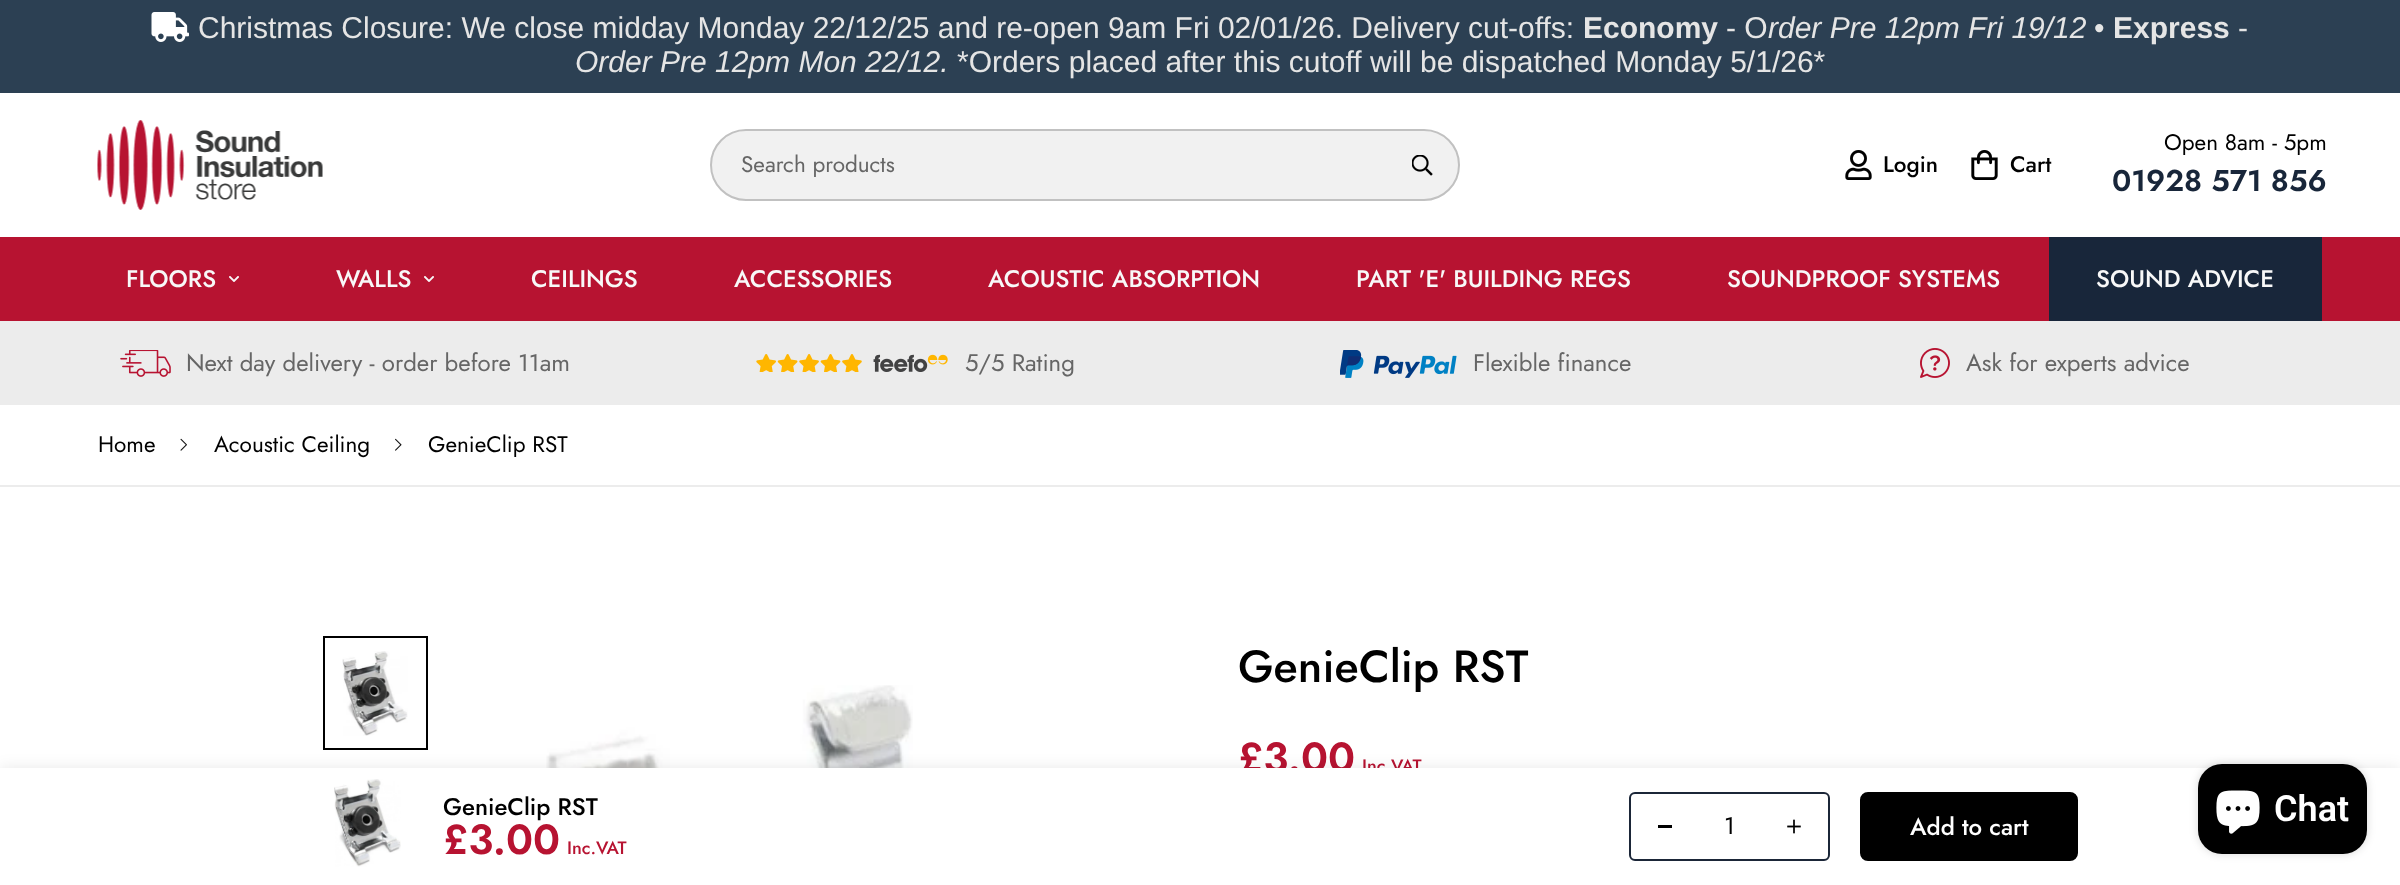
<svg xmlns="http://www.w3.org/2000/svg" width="2400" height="885">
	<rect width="100%" height="100%" fill="#FFFFFF" />
	<rect x="0" y="0" width="2400" height="93" fill="#2C4053" />
	<image x="151" y="12" width="38" height="30" href="assets/img1.png" />
	<text x="198" y="38" font-family="Liberation Sans" font-size="30" fill="#E5E5E5">Christmas Closure: We close midday Monday 22/12/25 and re-open 9am Fri 02/01/26. Delivery cut-offs:</text>
	<text x="1583" y="38" font-family="Liberation Sans" font-size="30" font-weight="700" fill="#E5E5E5">Economy</text>
	<text x="1726" y="38" font-family="Liberation Sans" font-size="30" fill="#E5E5E5">- O</text>
	<text x="1768" y="38" font-family="Liberation Sans" font-size="30" font-style="italic" fill="#E5E5E5">rder Pre 12pm Fri 19/12</text>
	<text x="2094" y="38" font-family="Liberation Sans" font-size="30" fill="#E5E5E5">•</text>
	<text x="2113" y="38" font-family="Liberation Sans" font-size="30" font-weight="700" fill="#E5E5E5">Express</text>
	<text x="2238" y="38" font-family="Liberation Sans" font-size="30" fill="#E5E5E5">-</text>
	<text x="575" y="72" font-family="Liberation Sans" font-size="30" font-style="italic" fill="#E5E5E5">Order Pre 12pm Mon 22/12.</text>
	<text x="957" y="72" font-family="Liberation Sans" font-size="30" fill="#E5E5E5">*Orders placed after this cutoff will be dispatched Monday 5/1/26*</text>
	<image x="97" y="120" width="226" height="90" href="assets/img2.png" />
	<rect x="711" y="130" width="748" height="70" rx="35" fill="#F1F1F1" stroke="#C1C1C1" stroke-width="2" />
	<text x="741" y="172" font-family="Jost" font-size="22.5" fill="#666666">Search products</text>
	<image x="1412" y="155" width="21" height="21" href="assets/img3.png" />
	<image x="1845" y="150" width="27" height="30" href="assets/img4.png" />
	<text x="1883" y="172" font-family="Jost" font-size="22.5" font-weight="500" fill="#000000">Login</text>
	<image x="1971" y="150" width="27" height="30" href="assets/img5.png" />
	<text x="2010" y="172" font-family="Jost" font-size="22.5" font-weight="500" fill="#000000">Cart</text>
	<text x="2164" y="150" font-family="Jost" font-size="22.5" fill="#000000">Open 8am - 5pm</text>
	<text x="2112" y="191" font-family="Jost" font-size="30" font-weight="600" fill="#18263A">01928 571 856</text>
	<rect x="0" y="237" width="2400" height="84" fill="#B71331" />
	<text x="126" y="287" font-family="Jost" font-size="24" font-weight="500" fill="#F8F8F8">FLOORS</text>
	<image x="229" y="276" width="10" height="6" href="assets/img6.png" />
	<text x="336" y="287" font-family="Jost" font-size="24" font-weight="500" fill="#F8F8F8">WALLS</text>
	<image x="424" y="276" width="10" height="6" href="assets/img6.png" />
	<g font-family="Jost" font-size="24" font-weight="500" fill="#F8F8F8">
		<text x="531" y="287">CEILINGS</text>
		<text x="734" y="287">ACCESSORIES</text>
		<text x="988" y="287">ACOUSTIC ABSORPTION</text>
		<text x="1356" y="287">PART 'E' BUILDING REGS</text>
		<text x="1727" y="287">SOUNDPROOF SYSTEMS</text>
	</g>
	<rect x="2049" y="237" width="273" height="84" fill="#18263A" />
	<text x="2096" y="287" font-family="Jost" font-size="24" font-weight="500" fill="#F8F8F8">SOUND ADVICE</text>
	<rect x="0" y="321" width="2400" height="84" fill="#ECECEC" />
	<image x="120" y="350" width="51" height="27" href="assets/img7.png" />
	<text x="186" y="371" font-family="Jost" font-size="24" fill="#666666">Next day delivery - order before 11am</text>
	<image x="756" y="354" width="192" height="18" href="assets/img8.png" />
	<text x="965" y="371" font-family="Jost" font-size="24" fill="#666666">5/5 Rating</text>
	<image x="1340" y="350" width="117" height="28" href="assets/img9.png" />
	<text x="1473" y="371" font-family="Jost" font-size="24" fill="#666666">Flexible finance</text>
	<image x="1920" y="348" width="30" height="30" href="assets/img10.png" />
	<text x="1966" y="371" font-family="Jost" font-size="24" fill="#666666">Ask for experts advice</text>
	<rect x="0" y="485" width="2400" height="2" fill="#ECECEC" />
	<text x="98" y="452" font-family="Jost" font-size="22.5" fill="#000000">Home</text>
	<image x="180" y="438" width="7" height="13" href="assets/img11.png" />
	<text x="214" y="452" font-family="Jost" font-size="22.5" fill="#000000">Acoustic Ceiling</text>
	<image x="395" y="438" width="7" height="13" href="assets/img12.png" />
	<text x="428" y="452" font-family="Jost" font-size="22.5" fill="#000000">GenieClip RST</text>
	<rect x="324" y="637" width="103" height="112" fill="none" stroke="#000000" stroke-width="2" />
	<image x="342" y="651" width="66" height="85" href="assets/img13.png" />
	<image x="546" y="685" width="367" height="83" href="assets/img14.png" />
	<text x="1238" y="682" font-family="Jost" font-size="45" font-weight="500" fill="#000000">GenieClip RST</text>
	<text x="1238" y="772" font-family="Jost" font-size="42" font-weight="600" fill="#B71331">£3.00</text>
	<text x="1362" y="772" font-family="Jost" font-size="18" font-weight="500" fill="#B71331">Inc.VAT</text>
	<rect x="0" y="768" width="2400" height="117" fill="#000000" fill-opacity="0.09" filter="blur(7.5px)" />
	<rect x="0" y="768" width="2400" height="117" fill="#FFFFFF" />
	<image x="334" y="779" width="67" height="88" href="assets/img15.png" />
	<text x="443" y="815" font-family="Jost" font-size="24" font-weight="500" fill="#000000">GenieClip RST</text>
	<text x="443" y="854" font-family="Jost" font-size="42" font-weight="600" fill="#B71331">£3.00</text>
	<text x="567" y="854" font-family="Jost" font-size="18" font-weight="500" fill="#B71331">Inc.VAT</text>
	<rect x="1630" y="793" width="199" height="67" rx="5" fill="none" stroke="#1B2638" stroke-width="2" />
	<rect x="1658" y="825" width="14" height="3" fill="#000000" />
	<text x="1724" y="834" font-family="Jost" font-size="24" fill="#000000">1</text>
	<image x="1787" y="819" width="14" height="15" href="assets/img16.png" />
	<rect x="1861" y="793" width="216" height="67" rx="7" fill="#000000" stroke="#000000" stroke-width="2" />
	<text x="1910" y="835" font-family="Jost" font-size="24" font-weight="500" fill="#FFFFFF">Add to cart</text>
	<rect x="2198" y="764" width="169" height="90" rx="24" fill="#000000" fill-opacity="0.15" filter="blur(4px)" />
	<rect x="2198" y="764" width="169" height="90" rx="24" fill="#000000" />
	<image x="2216" y="790" width="44" height="44" href="assets/img17.png" />
	<text x="2274" y="821" font-family="Roboto" font-size="36" font-weight="600" fill="#FFFFFF">Chat</text>
</svg>
